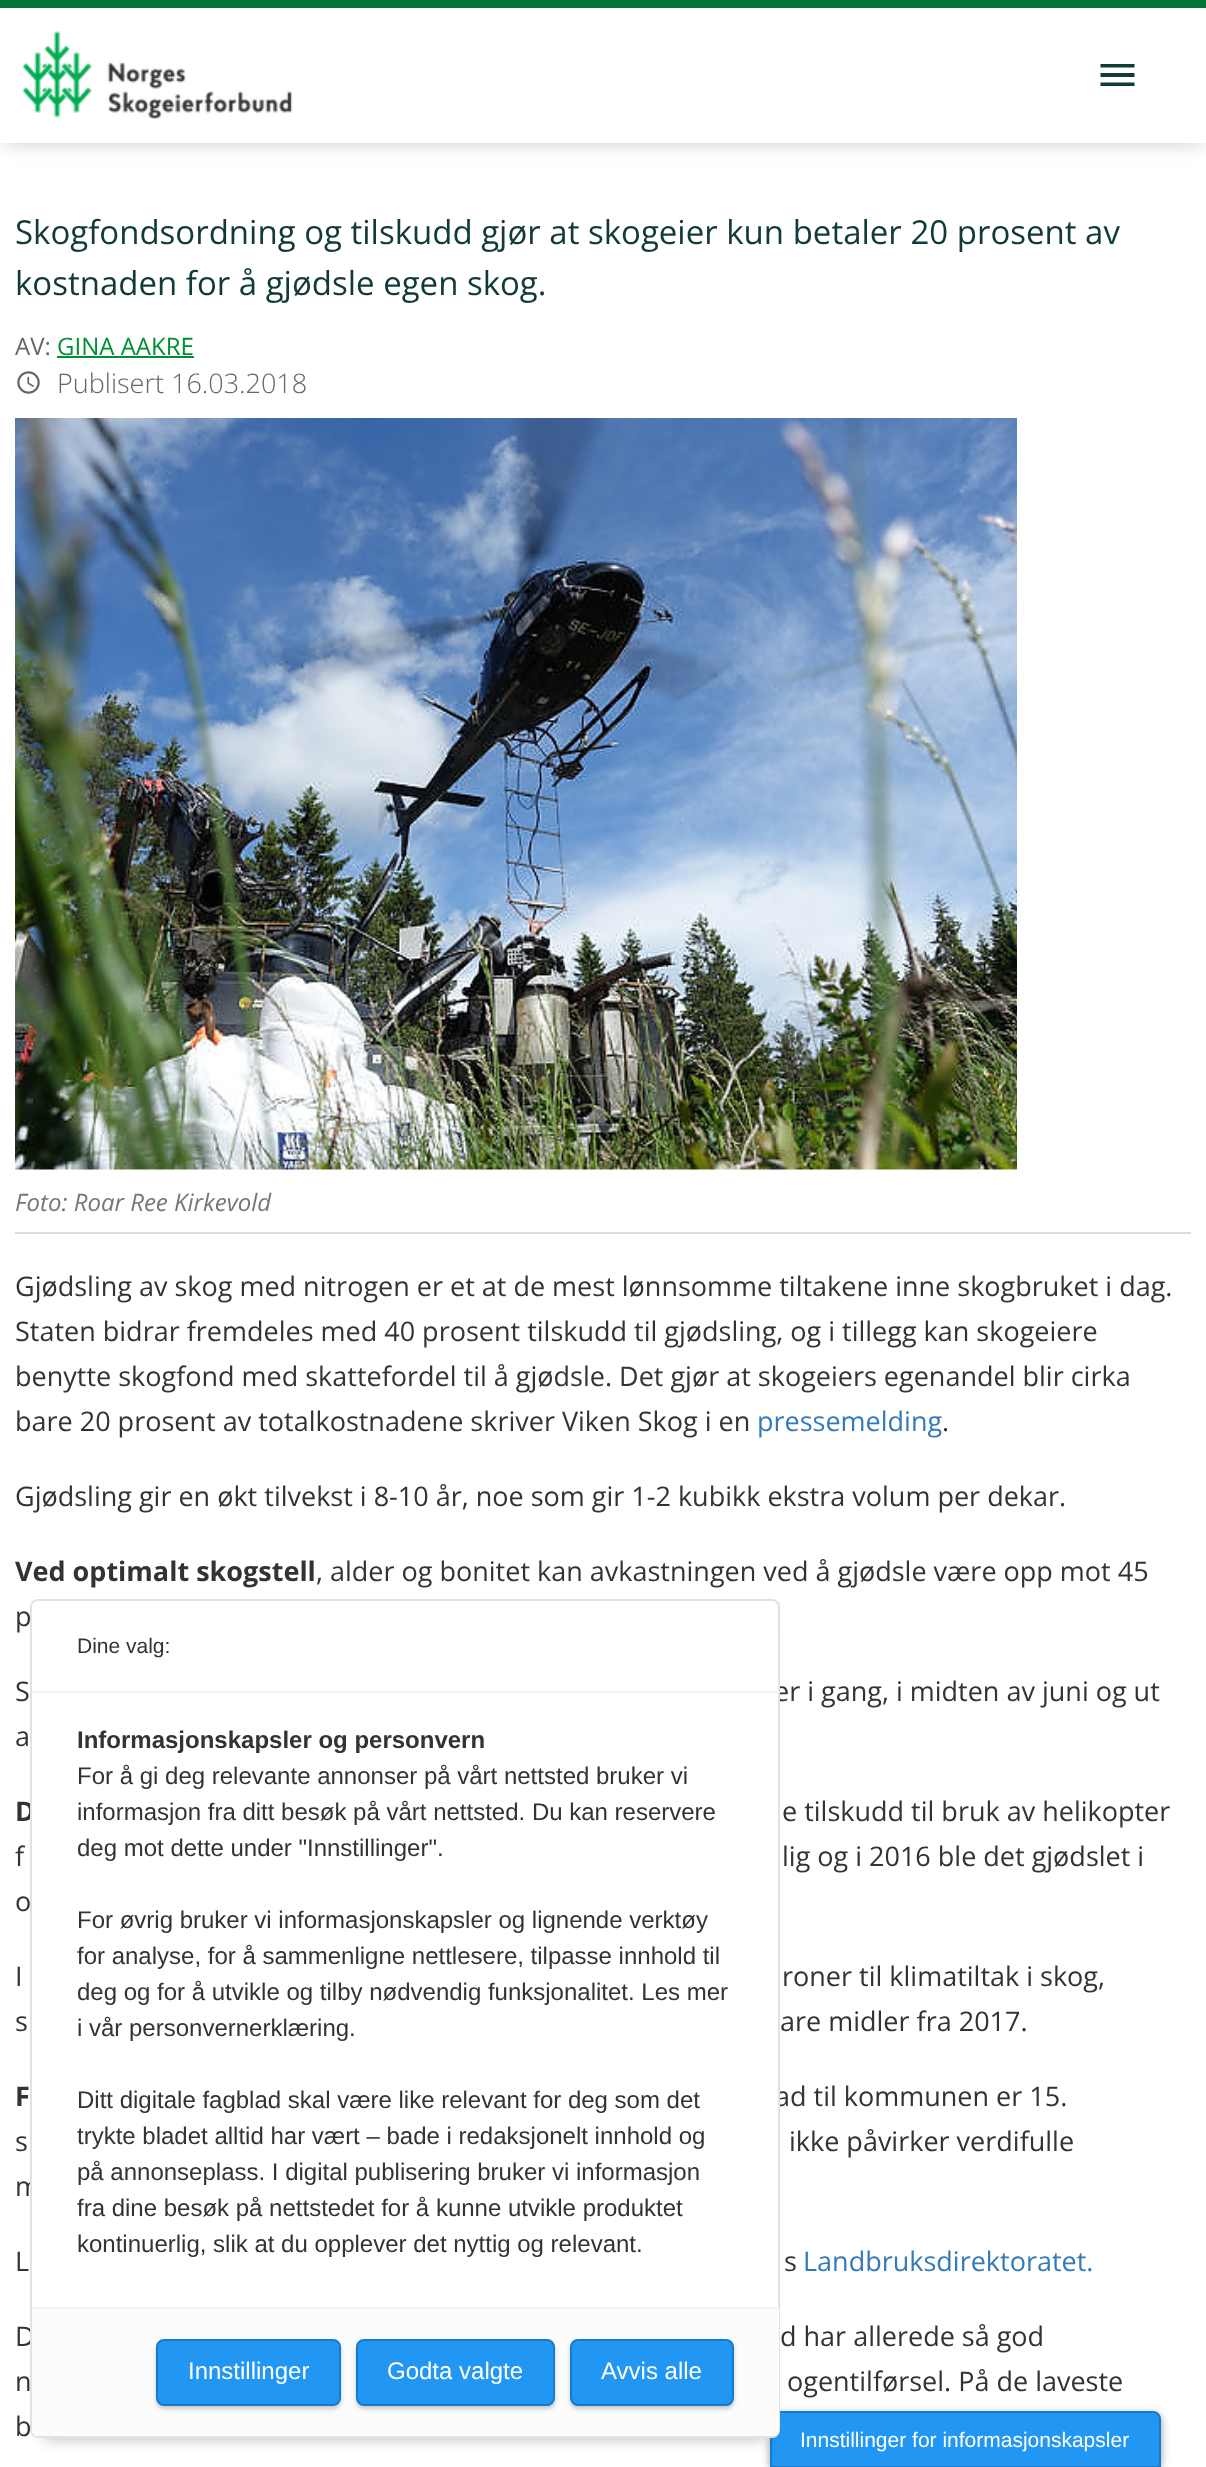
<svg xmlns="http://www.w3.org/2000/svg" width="1206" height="2467">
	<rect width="100%" height="100%" fill="#FFFFFF" />
	<rect x="3" y="6" width="1200" height="137" fill="#000000" fill-opacity="0.2" filter="blur(10px)" />
	<rect x="0" y="8" width="1206" height="135" fill="#FFFFFF" />
	<rect x="0" y="0" width="1206" height="8" fill="#007432" />
	<image x="22" y="31" width="271" height="88" href="assets/img1.png" />
	<path d="M1100.5 64H1134.5V67.5H1100.5ZM1100.5 77V73H1134.5V77ZM1100.5 86V82.5H1134.5V86Z" fill="#113A38" />
	<g font-family="Open Sans" font-size="33" fill="#113A38">
		<text x="15" y="244">Skogfondsordning og tilskudd gjør at skogeier kun betaler 20 prosent av</text>
		<text x="15" y="295">kostnaden for å gjødsle egen skog.</text>
	</g>
	<text x="15" y="355" font-family="Open Sans" font-size="24" fill="#666666">AV:</text>
	<text x="57" y="355" font-family="Open Sans" font-size="24" fill="#008E34">GINA AAKRE</text>
	<rect x="57" y="356" width="137" height="2" fill="#008E34" />
	<image x="17" y="371" width="23" height="23" href="assets/img2.png" />
	<text x="57" y="393" font-family="Open Sans" font-size="27" font-weight="300" fill="#666666">Publisert 16.03.2018</text>
	<image x="15" y="418" width="1002" height="752" href="assets/img3.png" />
	<rect x="15" y="1232" width="1176" height="2" fill="#DDDDDD" />
	<text x="15" y="1211" font-family="Open Sans" font-size="24" font-style="italic" fill="#777777">Foto: Roar Ree Kirkevold</text>
	<g font-family="Open Sans" font-size="27" fill="#333333">
		<text x="15" y="1296">Gjødsling av skog med nitrogen er et at de mest lønnsomme tiltakene inne skogbruket i dag.</text>
		<text x="15" y="1341">Staten bidrar fremdeles med 40 prosent tilskudd til gjødsling, og i tillegg kan skogeiere</text>
		<text x="15" y="1386">benytte skogfond med skattefordel til å gjødsle. Det gjør at skogeiers egenandel blir cirka</text>
		<text x="15" y="1431">bare 20 prosent av totalkostnadene skriver Viken Skog i en</text>
	</g>
	<text x="757" y="1431" font-family="Open Sans" font-size="27" fill="#337AB7">pressemelding</text>
	<g font-family="Open Sans" font-size="27" fill="#333333">
		<text x="942" y="1431">.</text>
		<text x="15" y="1506">Gjødsling gir en økt tilvekst i 8-10 år, noe som gir 1-2 kubikk ekstra volum per dekar.</text>
	</g>
	<text x="15" y="1581" font-family="Open Sans" font-size="27" font-weight="700" fill="#333333">Ved optimalt skogstell</text>
	<g font-family="Open Sans" font-size="27" fill="#333333">
		<text x="316" y="1581">, alder og bonitet kan avkastningen ved å gjødsle være opp mot 45</text>
		<text x="15" y="1626">p</text>
		<text x="15" y="1701">S</text>
		<text x="774" y="1701">er i gang, i midten av juni og ut</text>
		<text x="15" y="1746">a</text>
	</g>
	<text x="15" y="1821" font-family="Open Sans" font-size="27" font-weight="700" fill="#333333">D</text>
	<g font-family="Open Sans" font-size="27" fill="#333333">
		<text x="782" y="1821">e tilskudd til bruk av helikopter</text>
		<text x="15" y="1866">f</text>
		<text x="782" y="1866">lig og i 2016 ble det gjødslet i</text>
		<text x="15" y="1911">o</text>
		<text x="15" y="1986">I</text>
		<text x="782" y="1986">roner til klimatiltak i skog,</text>
		<text x="15" y="2031">s</text>
		<text x="780" y="2031">are midler fra 2017.</text>
	</g>
	<text x="15" y="2106" font-family="Open Sans" font-size="27" font-weight="700" fill="#333333">F</text>
	<g font-family="Open Sans" font-size="27" fill="#333333">
		<text x="775" y="2106">ad til kommunen er 15.</text>
		<text x="15" y="2151">s</text>
		<text x="789" y="2151">ikke påvirker verdifulle</text>
		<text x="15" y="2196">m</text>
		<text x="15" y="2271">L</text>
		<text x="784" y="2271">s</text>
	</g>
	<text x="803" y="2271" font-family="Open Sans" font-size="27" fill="#337AB7">Landbruksdirektoratet.</text>
	<g font-family="Open Sans" font-size="27" fill="#333333">
		<text x="15" y="2346">D</text>
		<text x="780" y="2346">d har allerede så god</text>
		<text x="15" y="2391">n</text>
		<text x="787" y="2391">ogentilførsel. På de laveste</text>
		<text x="15" y="2436">b</text>
	</g>
	<rect x="770" y="2414" width="391" height="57" rx="8" fill="#000000" fill-opacity="0.4" filter="blur(4px)" />
	<path d="M778 2412H1153C1157 2412 1160 2415 1160 2419V2467H771V2419C771 2415 774 2412 778 2412Z" fill="#2196F3" stroke="#157BCE" stroke-width="2" />
	<rect x="45" y="1629" width="720" height="809" fill="#000000" fill-opacity="0.3" filter="blur(7.5px)" />
	<rect x="31" y="1600" width="748" height="837" rx="7" fill="#FFFFFF" stroke="#E2E2E2" stroke-width="2" />
	<rect x="32" y="1691" width="747" height="2" fill="#F2F2F2" />
	<text x="77" y="1653" font-family="Liberation Sans" font-size="21" fill="#333333">Dine valg:</text>
	<text x="77" y="1748" font-family="Liberation Sans" font-size="24" font-weight="700" fill="#333333">Informasjonskapsler og personvern</text>
	<g font-family="Liberation Sans" font-size="24" fill="#333333">
		<text x="77" y="1784">For å gi deg relevante annonser på vårt nettsted bruker vi</text>
		<text x="77" y="1820">informasjon fra ditt besøk på vårt nettsted. Du kan reservere</text>
		<text x="77" y="1856">deg mot dette under "Innstillinger".</text>
		<text x="77" y="1928">For øvrig bruker vi informasjonskapsler og lignende verktøy</text>
		<text x="77" y="1964">for analyse, for å sammenligne nettlesere, tilpasse innhold til</text>
		<text x="77" y="2000">deg og for å utvikle og tilby nødvendig funksjonalitet. Les mer</text>
		<text x="77" y="2036">i vår personvernerklæring.</text>
		<text x="77" y="2108">Ditt digitale fagblad skal være like relevant for deg som det</text>
		<text x="77" y="2144">trykte bladet alltid har vært – bade i redaksjonelt innhold og</text>
		<text x="77" y="2180">på annonseplass. I digital publisering bruker vi informasjon</text>
		<text x="77" y="2216">fra dine besøk på nettstedet for å kunne utvikle produktet</text>
		<text x="77" y="2252">kontinuerlig, slik at du opplever det nyttig og relevant.</text>
	</g>
	<path d="M32 2307H779V2430C779 2433.5 776.5 2436 773 2436H38C34.5 2436 32 2433.5 32 2430Z" fill="#FCFCFC" />
	<rect x="32" y="2307" width="747" height="2" fill="#F2F2F2" />
	<rect x="156" y="2342" width="185" height="67" rx="8" fill="#000000" fill-opacity="0.2" filter="blur(2px)" />
	<rect x="157" y="2340" width="183" height="65" rx="7" fill="#2196F3" stroke="#157BCE" stroke-width="2" />
	<text x="188" y="2379" font-family="Liberation Sans" font-size="24" fill="#FFFFFF">Innstillinger</text>
	<rect x="356" y="2342" width="199" height="67" rx="8" fill="#000000" fill-opacity="0.2" filter="blur(2px)" />
	<rect x="357" y="2340" width="197" height="65" rx="7" fill="#2196F3" stroke="#157BCE" stroke-width="2" />
	<text x="387" y="2379" font-family="Liberation Sans" font-size="24" fill="#FFFFFF">Godta valgte</text>
	<rect x="570" y="2342" width="164" height="67" rx="8" fill="#000000" fill-opacity="0.2" filter="blur(2px)" />
	<rect x="571" y="2340" width="162" height="65" rx="7" fill="#2196F3" stroke="#157BCE" stroke-width="2" />
	<text x="601" y="2379" font-family="Liberation Sans" font-size="24" fill="#FFFFFF">Avvis alle</text>
	<text x="800" y="2447" font-family="Liberation Sans" font-size="21" fill="#FFFFFF">Innstillinger for informasjonskapsler</text>
</svg>
